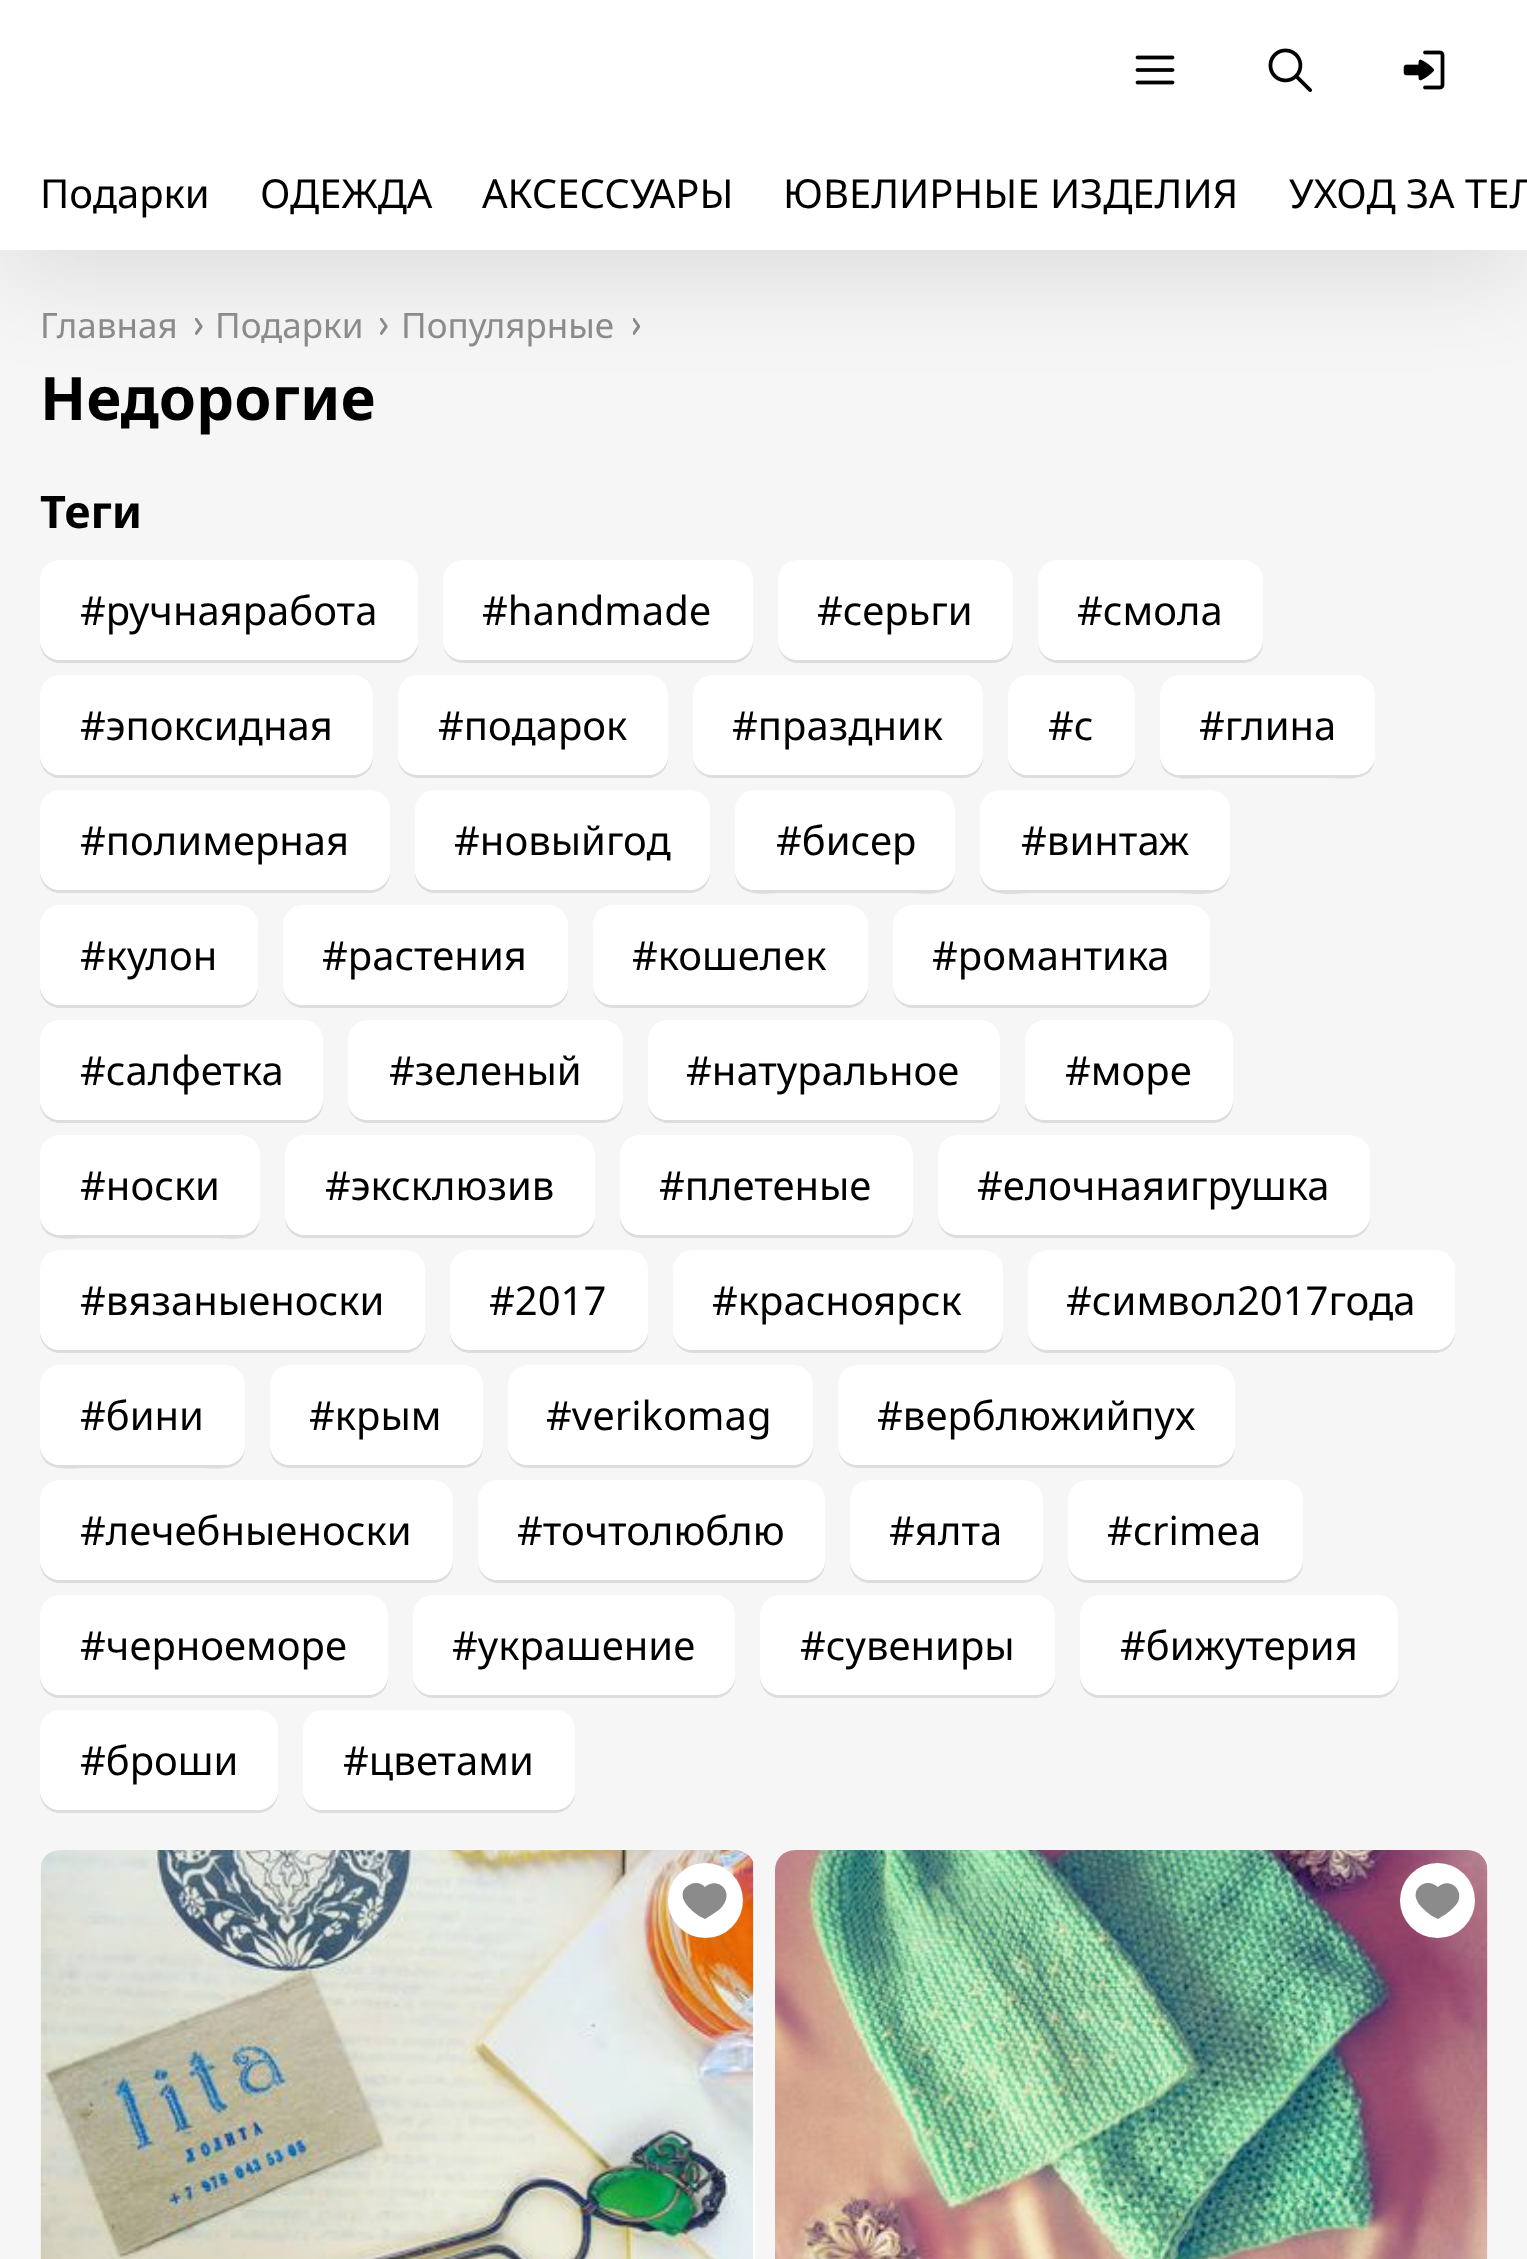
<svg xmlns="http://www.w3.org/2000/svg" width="1527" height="2259">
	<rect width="100%" height="100%" fill="#F6F6F6" />
	<image x="195" y="318" width="8" height="17" href="assets/img4.png" />
	<image x="380" y="318" width="8" height="17" href="assets/img4.png" />
	<image x="633" y="318" width="7" height="17" href="assets/img5.png" />
	<rect x="0" y="25" width="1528" height="250" fill="#000000" fill-opacity="0.1" filter="blur(50px)" />
	<rect x="0" y="0" width="1527" height="250" fill="#FFFFFF" />
	<image x="1135" y="55" width="40" height="30" href="assets/img1.png" />
	<image x="1268" y="48" width="44" height="44" href="assets/img2.png" />
	<image x="1403" y="50" width="42" height="40" href="assets/img3.png" />
	<g font-family="Noto Sans" font-size="40" fill="#000000">
		<text x="40" y="208">Подарки</text>
		<text x="260" y="208">ОДЕЖДА</text>
		<text x="482" y="208">АКСЕССУАРЫ</text>
		<text x="783" y="208">ЮВЕЛИРНЫЕ ИЗДЕЛИЯ</text>
		<text x="1289" y="208">УХОД ЗА ТЕЛ</text>
	</g>
	<g font-family="Noto Sans" font-size="35" fill="#8B8B8B">
		<text x="40" y="338">Главная</text>
		<text x="215" y="338">Подарки</text>
		<text x="401" y="338">Популярные</text>
	</g>
	<text x="40" y="420" font-family="Noto Sans" font-size="60" font-weight="700" fill="#000000">Недорогие</text>
	<text x="40" y="528" font-family="Noto Sans" font-size="45" font-weight="700" fill="#000000">Теги</text>
	<path d="M40 640V643C40 654 49 663 60 663H398C409 663 418 654 418 643V583L417 578L418 640C418 651 409 660 398 660H60C49 660 40 651 40 640Z" fill="#DDDDDD" />
	<rect x="40" y="560" width="378" height="100" rx="20" fill="#FFFFFF" />
	<text x="80" y="625" font-family="Noto Sans" font-size="40" fill="#000000">#ручнаяработа</text>
	<path d="M443 645C444 655 453 663 463 663H733C744 663 753 654 753 643V583L752 578V640C752 651 744 660 732 660H462C453 660 445 654 443 645Z" fill="#DDDDDD" />
	<rect x="443" y="560" width="310" height="100" rx="20" fill="#FFFFFF" />
	<text x="482" y="625" font-family="Noto Sans" font-size="40" fill="#000000">#handmade</text>
	<path d="M778 645C779 655 788 663 798 663H993C1004 663 1013 654 1013 643V583L1012 578V640C1012 651 1004 660 992 660H798C788 660 780 654 778 645Z" fill="#DDDDDD" />
	<rect x="778" y="560" width="235" height="100" rx="20" fill="#FFFFFF" />
	<text x="817" y="625" font-family="Noto Sans" font-size="40" fill="#000000">#серьги</text>
	<path d="M1038 645C1039 655 1048 663 1058 663H1243C1254 663 1263 654 1263 643V583L1262 578V640C1262 651 1254 660 1242 660H1058C1048 660 1040 654 1038 645Z" fill="#DDDDDD" />
	<rect x="1038" y="560" width="225" height="100" rx="20" fill="#FFFFFF" />
	<text x="1077" y="625" font-family="Noto Sans" font-size="40" fill="#000000">#смола</text>
	<path d="M40 755V758C40 769 49 778 60 778H353C364 778 373 769 373 758V698L372 693V755C372 766 364 775 352 775H60C49 775 40 766 40 755Z" fill="#DDDDDD" />
	<rect x="40" y="675" width="333" height="100" rx="20" fill="#FFFFFF" />
	<text x="80" y="740" font-family="Noto Sans" font-size="40" fill="#000000">#эпоксидная</text>
	<path d="M398 760C399 770 408 778 418 778H648C659 778 668 769 668 758V698L667 693L668 755C668 766 659 775 648 775H418C408 775 400 769 398 760Z" fill="#DDDDDD" />
	<rect x="398" y="675" width="270" height="100" rx="20" fill="#FFFFFF" />
	<text x="438" y="740" font-family="Noto Sans" font-size="40" fill="#000000">#подарок</text>
	<path d="M693 760C694 770 703 778 713 778H963C974 778 983 769 983 758V698L982 693V755C982 766 974 775 962 775H712C703 775 695 769 693 760Z" fill="#DDDDDD" />
	<rect x="693" y="675" width="290" height="100" rx="20" fill="#FFFFFF" />
	<text x="732" y="740" font-family="Noto Sans" font-size="40" fill="#000000">#праздник</text>
	<path d="M1008 760C1009 770 1018 778 1028 778H1115C1126 778 1135 769 1135 758V755C1135 766 1126 775 1115 775H1028C1018 775 1010 769 1008 760Z" fill="#DDDDDD" />
	<rect x="1008" y="675" width="127" height="100" rx="20" fill="#FFFFFF" />
	<text x="1048" y="740" font-family="Noto Sans" font-size="40" fill="#000000">#с</text>
	<path d="M1160 755C1160 784 1188 778 1209 778H1326C1347 778 1375 784 1375 755C1375 766 1366 775 1355 775H1180C1169 775 1160 766 1160 755Z" fill="#DDDDDD" />
	<rect x="1160" y="675" width="215" height="100" rx="20" fill="#FFFFFF" />
	<text x="1199" y="740" font-family="Noto Sans" font-size="40" fill="#000000">#глина</text>
	<path d="M40 870V873C40 884 49 893 60 893H370C381 893 390 884 390 873V870C390 881 381 890 370 890H60C49 890 40 881 40 870Z" fill="#DDDDDD" />
	<rect x="40" y="790" width="350" height="100" rx="20" fill="#FFFFFF" />
	<text x="80" y="855" font-family="Noto Sans" font-size="40" fill="#000000">#полимерная</text>
	<path d="M415 870V873C415 884 424 893 435 893H690C701 893 710 884 710 873V870C710 881 701 890 690 890H435C424 890 415 881 415 870Z" fill="#DDDDDD" />
	<rect x="415" y="790" width="295" height="100" rx="20" fill="#FFFFFF" />
	<text x="454" y="855" font-family="Noto Sans" font-size="40" fill="#000000">#новыйгод</text>
	<path d="M735 870C735 900 764 893 785 893H905C926 893 955 900 955 870C955 881 946 890 935 890H755C744 890 735 881 735 870Z" fill="#DDDDDD" />
	<rect x="735" y="790" width="220" height="100" rx="20" fill="#FFFFFF" />
	<text x="776" y="855" font-family="Noto Sans" font-size="40" fill="#000000">#бисер</text>
	<path d="M980 870C980 901 1013 893 1035 893H1175C1197 893 1230 901 1230 870C1230 881 1221 890 1210 890H1000C989 890 980 881 980 870Z" fill="#DDDDDD" />
	<rect x="980" y="790" width="250" height="100" rx="20" fill="#FFFFFF" />
	<text x="1021" y="855" font-family="Noto Sans" font-size="40" fill="#000000">#винтаж</text>
	<path d="M40 985V988C40 999 49 1008 60 1008H238C249 1008 258 999 258 988V928L257 923L258 985C258 996 249 1005 238 1005H60C49 1005 40 996 40 985Z" fill="#DDDDDD" />
	<rect x="40" y="905" width="218" height="100" rx="20" fill="#FFFFFF" />
	<text x="80" y="970" font-family="Noto Sans" font-size="40" fill="#000000">#кулон</text>
	<path d="M283 990C284 1000 293 1008 303 1008H548C559 1008 568 999 568 988V928L567 923L568 985C568 996 559 1005 548 1005H302C293 1005 285 999 283 990Z" fill="#DDDDDD" />
	<rect x="283" y="905" width="285" height="100" rx="20" fill="#FFFFFF" />
	<text x="322" y="970" font-family="Noto Sans" font-size="40" fill="#000000">#растения</text>
	<path d="M593 990C594 1000 603 1008 613 1008H848C859 1008 868 999 868 988V928L867 923L868 985C868 996 859 1005 848 1005H612C603 1005 595 999 593 990Z" fill="#DDDDDD" />
	<rect x="593" y="905" width="275" height="100" rx="20" fill="#FFFFFF" />
	<text x="632" y="970" font-family="Noto Sans" font-size="40" fill="#000000">#кошелек</text>
	<path d="M893 990C894 1000 903 1008 913 1008H1190C1201 1008 1210 999 1210 988V985C1210 996 1201 1005 1190 1005H912C903 1005 895 999 893 990Z" fill="#DDDDDD" />
	<rect x="893" y="905" width="317" height="100" rx="20" fill="#FFFFFF" />
	<text x="932" y="970" font-family="Noto Sans" font-size="40" fill="#000000">#романтика</text>
	<path d="M40 1100V1103C40 1114 49 1123 60 1123H303C314 1123 323 1114 323 1103V1043L322 1038V1100C322 1111 314 1120 302 1120H60C49 1120 40 1111 40 1100Z" fill="#DDDDDD" />
	<rect x="40" y="1020" width="283" height="100" rx="20" fill="#FFFFFF" />
	<text x="80" y="1085" font-family="Noto Sans" font-size="40" fill="#000000">#салфетка</text>
	<path d="M348 1105C349 1115 358 1123 368 1123H603C614 1123 623 1114 623 1103V1043L622 1038V1100C622 1111 614 1120 602 1120H368C358 1120 350 1114 348 1105Z" fill="#DDDDDD" />
	<rect x="348" y="1020" width="275" height="100" rx="20" fill="#FFFFFF" />
	<text x="389" y="1085" font-family="Noto Sans" font-size="40" fill="#000000">#зеленый</text>
	<path d="M648 1105C649 1115 658 1123 668 1123H980C991 1123 1000 1114 1000 1103V1100C1000 1111 991 1120 980 1120H668C658 1120 650 1114 648 1105Z" fill="#DDDDDD" />
	<rect x="648" y="1020" width="352" height="100" rx="20" fill="#FFFFFF" />
	<text x="686" y="1085" font-family="Noto Sans" font-size="40" fill="#000000">#натуральное</text>
	<path d="M1025 1100V1103C1025 1114 1034 1123 1045 1123H1213C1224 1123 1233 1114 1233 1103V1043L1232 1038V1100C1232 1111 1224 1120 1212 1120H1045C1034 1120 1025 1111 1025 1100Z" fill="#DDDDDD" />
	<rect x="1025" y="1020" width="208" height="100" rx="20" fill="#FFFFFF" />
	<text x="1065" y="1085" font-family="Noto Sans" font-size="40" fill="#000000">#море</text>
	<path d="M40 1215C40 1245 69 1238 90 1238H210C231 1238 260 1245 260 1215C260 1226 251 1235 240 1235H60C49 1235 40 1226 40 1215Z" fill="#DDDDDD" />
	<rect x="40" y="1135" width="220" height="100" rx="20" fill="#FFFFFF" />
	<text x="80" y="1200" font-family="Noto Sans" font-size="40" fill="#000000">#носки</text>
	<path d="M285 1215V1218C285 1229 294 1238 305 1238H575C586 1238 595 1229 595 1218V1215C595 1226 586 1235 575 1235H305C294 1235 285 1226 285 1215Z" fill="#DDDDDD" />
	<rect x="285" y="1135" width="310" height="100" rx="20" fill="#FFFFFF" />
	<text x="325" y="1200" font-family="Noto Sans" font-size="40" fill="#000000">#эксклюзив</text>
	<path d="M620 1215V1218C620 1229 629 1238 640 1238H893C904 1238 913 1229 913 1218V1158L912 1153V1215C912 1226 904 1235 892 1235H640C629 1235 620 1226 620 1215Z" fill="#DDDDDD" />
	<rect x="620" y="1135" width="293" height="100" rx="20" fill="#FFFFFF" />
	<text x="659" y="1200" font-family="Noto Sans" font-size="40" fill="#000000">#плетеные</text>
	<path d="M938 1220C939 1230 948 1238 958 1238H1350C1361 1238 1370 1229 1370 1218V1215C1370 1226 1361 1235 1350 1235H958C948 1235 940 1229 938 1220Z" fill="#DDDDDD" />
	<rect x="938" y="1135" width="432" height="100" rx="20" fill="#FFFFFF" />
	<text x="977" y="1200" font-family="Noto Sans" font-size="40" fill="#000000">#елочнаяигрушка</text>
	<path d="M40 1330V1333C40 1344 49 1353 60 1353H405C416 1353 425 1344 425 1333V1330C425 1341 416 1350 405 1350H60C49 1350 40 1341 40 1330Z" fill="#DDDDDD" />
	<rect x="40" y="1250" width="385" height="100" rx="20" fill="#FFFFFF" />
	<text x="80" y="1315" font-family="Noto Sans" font-size="40" fill="#000000">#вязаныеноски</text>
	<path d="M450 1330V1333C450 1344 459 1353 470 1353H628C639 1353 648 1344 648 1333V1273L647 1268L648 1330C648 1341 639 1350 628 1350H470C459 1350 450 1341 450 1330Z" fill="#DDDDDD" />
	<rect x="450" y="1250" width="198" height="100" rx="20" fill="#FFFFFF" />
	<text x="489" y="1315" font-family="Noto Sans" font-size="40" fill="#000000">#2017</text>
	<path d="M673 1335C674 1345 683 1353 693 1353H983C994 1353 1003 1344 1003 1333V1273L1002 1268V1330C1002 1341 994 1350 982 1350H692C683 1350 675 1344 673 1335Z" fill="#DDDDDD" />
	<rect x="673" y="1250" width="330" height="100" rx="20" fill="#FFFFFF" />
	<text x="712" y="1315" font-family="Noto Sans" font-size="40" fill="#000000">#красноярск</text>
	<path d="M1028 1335C1029 1345 1038 1353 1048 1353H1435C1446 1353 1455 1344 1455 1333V1330C1455 1341 1446 1350 1435 1350H1048C1038 1350 1030 1344 1028 1335Z" fill="#DDDDDD" />
	<rect x="1028" y="1250" width="427" height="100" rx="20" fill="#FFFFFF" />
	<text x="1066" y="1315" font-family="Noto Sans" font-size="40" fill="#000000">#символ2017года</text>
	<path d="M40 1445C40 1474 66 1468 88 1468H198C219 1468 245 1474 245 1445C245 1456 236 1465 225 1465H60C49 1465 40 1456 40 1445Z" fill="#DDDDDD" />
	<rect x="40" y="1365" width="205" height="100" rx="20" fill="#FFFFFF" />
	<text x="80" y="1430" font-family="Noto Sans" font-size="40" fill="#000000">#бини</text>
	<path d="M270 1445V1448C270 1459 279 1468 290 1468H463C474 1468 483 1459 483 1448V1388L482 1383V1445C482 1456 474 1465 462 1465H290C279 1465 270 1456 270 1445Z" fill="#DDDDDD" />
	<rect x="270" y="1365" width="213" height="100" rx="20" fill="#FFFFFF" />
	<text x="309" y="1430" font-family="Noto Sans" font-size="40" fill="#000000">#крым</text>
	<path d="M508 1450C509 1460 518 1468 528 1468H793C804 1468 813 1459 813 1448V1388L812 1383V1445C812 1456 804 1465 792 1465H528C518 1465 510 1459 508 1450Z" fill="#DDDDDD" />
	<rect x="508" y="1365" width="305" height="100" rx="20" fill="#FFFFFF" />
	<text x="546" y="1430" font-family="Noto Sans" font-size="40" fill="#000000">#verikomag</text>
	<path d="M838 1450C839 1460 848 1468 858 1468H1215C1226 1468 1235 1459 1235 1448V1445C1235 1456 1226 1465 1215 1465H858C848 1465 840 1459 838 1450Z" fill="#DDDDDD" />
	<rect x="838" y="1365" width="397" height="100" rx="20" fill="#FFFFFF" />
	<text x="877" y="1430" font-family="Noto Sans" font-size="40" fill="#000000">#верблюжийпух</text>
	<path d="M40 1560V1563C40 1574 49 1583 60 1583H433C444 1583 453 1574 453 1563V1503L452 1498V1560C452 1571 444 1580 432 1580H60C49 1580 40 1571 40 1560Z" fill="#DDDDDD" />
	<rect x="40" y="1480" width="413" height="100" rx="20" fill="#FFFFFF" />
	<text x="80" y="1545" font-family="Noto Sans" font-size="40" fill="#000000">#лечебныеноски</text>
	<path d="M478 1565C479 1575 488 1583 498 1583H805C816 1583 825 1574 825 1563V1560C825 1571 816 1580 805 1580H498C488 1580 480 1574 478 1565Z" fill="#DDDDDD" />
	<rect x="478" y="1480" width="347" height="100" rx="20" fill="#FFFFFF" />
	<text x="517" y="1545" font-family="Noto Sans" font-size="40" fill="#000000">#точтолюблю</text>
	<path d="M850 1560V1563C850 1574 859 1583 870 1583H1023C1034 1583 1043 1574 1043 1563V1503L1042 1498V1560C1042 1571 1034 1580 1022 1580H870C859 1580 850 1571 850 1560Z" fill="#DDDDDD" />
	<rect x="850" y="1480" width="193" height="100" rx="20" fill="#FFFFFF" />
	<text x="889" y="1545" font-family="Noto Sans" font-size="40" fill="#000000">#ялта</text>
	<path d="M1068 1565C1069 1575 1078 1583 1088 1583H1283C1294 1583 1303 1574 1303 1563V1503L1302 1498V1560C1302 1571 1294 1580 1282 1580H1088C1078 1580 1070 1574 1068 1565Z" fill="#DDDDDD" />
	<rect x="1068" y="1480" width="235" height="100" rx="20" fill="#FFFFFF" />
	<text x="1107" y="1545" font-family="Noto Sans" font-size="40" fill="#000000">#crimea</text>
	<path d="M40 1675V1678C40 1689 49 1698 60 1698H368C379 1698 388 1689 388 1678V1618L387 1613L388 1675C388 1686 379 1695 368 1695H60C49 1695 40 1686 40 1675Z" fill="#DDDDDD" />
	<rect x="40" y="1595" width="348" height="100" rx="20" fill="#FFFFFF" />
	<text x="80" y="1660" font-family="Noto Sans" font-size="40" fill="#000000">#черноеморе</text>
	<path d="M413 1680C414 1690 423 1698 433 1698H715C726 1698 735 1689 735 1678V1675C735 1686 726 1695 715 1695H432C423 1695 415 1689 413 1680Z" fill="#DDDDDD" />
	<rect x="413" y="1595" width="322" height="100" rx="20" fill="#FFFFFF" />
	<text x="452" y="1660" font-family="Noto Sans" font-size="40" fill="#000000">#украшение</text>
	<path d="M760 1675V1678C760 1689 769 1698 780 1698H1035C1046 1698 1055 1689 1055 1678V1675C1055 1686 1046 1695 1035 1695H780C769 1695 760 1686 760 1675Z" fill="#DDDDDD" />
	<rect x="760" y="1595" width="295" height="100" rx="20" fill="#FFFFFF" />
	<text x="800" y="1660" font-family="Noto Sans" font-size="40" fill="#000000">#сувениры</text>
	<path d="M1080 1675V1678C1080 1689 1089 1698 1100 1698H1378C1389 1698 1398 1689 1398 1678V1618L1397 1613L1398 1675C1398 1686 1389 1695 1378 1695H1100C1089 1695 1080 1686 1080 1675Z" fill="#DDDDDD" />
	<rect x="1080" y="1595" width="318" height="100" rx="20" fill="#FFFFFF" />
	<text x="1120" y="1660" font-family="Noto Sans" font-size="40" fill="#000000">#бижутерия</text>
	<path d="M40 1790V1793C40 1804 49 1813 60 1813H258C269 1813 278 1804 278 1793V1733L277 1728L278 1790C278 1801 269 1810 258 1810H60C49 1810 40 1801 40 1790Z" fill="#DDDDDD" />
	<rect x="40" y="1710" width="238" height="100" rx="20" fill="#FFFFFF" />
	<text x="80" y="1775" font-family="Noto Sans" font-size="40" fill="#000000">#броши</text>
	<path d="M303 1795C304 1805 313 1813 323 1813H555C566 1813 575 1804 575 1793V1790C575 1801 566 1810 555 1810H322C313 1810 305 1804 303 1795Z" fill="#DDDDDD" />
	<rect x="303" y="1710" width="272" height="100" rx="20" fill="#FFFFFF" />
	<text x="343" y="1775" font-family="Noto Sans" font-size="40" fill="#000000">#цветами</text>
	<rect x="40" y="1850" width="715" height="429" rx="20" fill="#FFFFFF" />
	<image x="40" y="1850" width="714" height="409" href="assets/img6.png" />
	<circle cx="705.5" cy="1900.5" r="37.5" fill="#FFFFFF" />
	<path d="M696 1883C692 1883 688 1885 685 1888C677 1899 691 1910 699 1916L705 1919L713 1914C718 1911 723 1907 725 1902C732 1888 715 1877 705 1887C703 1885 700 1883 696 1883Z" fill="#8B8B8B" />
	<rect x="775" y="1850" width="713" height="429" rx="20" fill="#FFFFFF" />
	<image x="775" y="1850" width="713" height="409" href="assets/img7.png" />
	<circle cx="1437.5" cy="1900.5" r="37.5" fill="#FFFFFF" />
	<path d="M1428 1883C1424 1883 1420 1885 1418 1888C1410 1899 1424 1910 1432 1916L1438 1919L1446 1914C1450 1911 1455 1907 1458 1902C1464 1888 1448 1877 1438 1887C1435 1885 1432 1883 1428 1883Z" fill="#8B8B8B" />
</svg>
